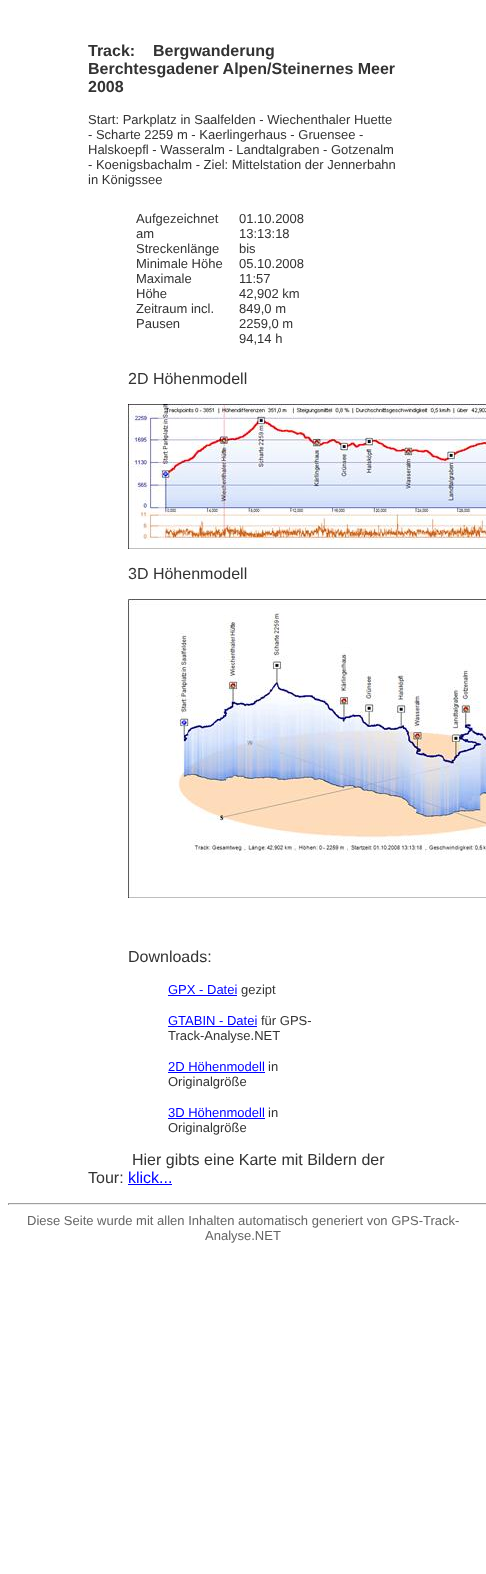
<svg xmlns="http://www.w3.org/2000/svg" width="486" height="1574">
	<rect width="100%" height="100%" fill="#FFFFFF" />
	<g font-family="Liberation Sans" font-size="16" font-weight="700" fill="#333333">
		<text x="88" y="56" xml:space="preserve">Track:    Bergwanderung</text>
		<text x="88" y="74">Berchtesgadener Alpen/Steinernes Meer</text>
		<text x="88" y="92">2008</text>
	</g>
	<g font-family="Liberation Sans" font-size="13" fill="#333333">
		<text x="88" y="124">Start: Parkplatz in Saalfelden - Wiechenthaler Huette</text>
		<text x="88" y="139">- Scharte 2259 m - Kaerlingerhaus - Gruensee -</text>
		<text x="88" y="154">Halskoepfl - Wasseralm - Landtalgraben - Gotzenalm</text>
		<text x="88" y="169">- Koenigsbachalm - Ziel: Mittelstation der Jennerbahn</text>
		<text x="88" y="184">in Königssee</text>
		<text x="136" y="223">Aufgezeichnet</text>
		<text x="136" y="238">am</text>
		<text x="136" y="253">Streckenlänge</text>
		<text x="136" y="268">Minimale Höhe</text>
		<text x="136" y="283">Maximale</text>
		<text x="136" y="298">Höhe</text>
		<text x="136" y="313">Zeitraum incl.</text>
		<text x="136" y="328">Pausen</text>
		<text x="239" y="223">01.10.2008</text>
		<text x="239" y="238">13:13:18</text>
		<text x="239" y="253">bis</text>
		<text x="239" y="268">05.10.2008</text>
		<text x="239" y="283">11:57</text>
		<text x="239" y="298">42,902 km</text>
		<text x="239" y="313">849,0 m</text>
		<text x="239" y="328">2259,0 m</text>
		<text x="239" y="343">94,14 h</text>
	</g>
	<text x="128" y="384" font-family="Liberation Sans" font-size="16" fill="#333333">2D Höhenmodell</text>
	<image x="128" y="404" width="358" height="145" href="assets/img1.png" />
	<text x="128" y="579" font-family="Liberation Sans" font-size="16" fill="#333333">3D Höhenmodell</text>
	<image x="128" y="599" width="358" height="299" href="assets/img2.png" />
	<text x="128" y="962" font-family="Liberation Sans" font-size="16" fill="#333333">Downloads:</text>
	<text x="168" y="994" font-family="Liberation Sans" font-size="13" fill="#0000FF">GPX - Datei</text>
	<rect x="168" y="995" width="69" height="1" fill="#0000FF" />
	<text x="241" y="994" font-family="Liberation Sans" font-size="13" fill="#333333">gezipt</text>
	<text x="168" y="1025" font-family="Liberation Sans" font-size="13" fill="#0000FF">GTABIN - Datei</text>
	<rect x="168" y="1026" width="89" height="1" fill="#0000FF" />
	<g font-family="Liberation Sans" font-size="13" fill="#333333">
		<text x="261" y="1025">für GPS-</text>
		<text x="168" y="1040">Track-Analyse.NET</text>
	</g>
	<text x="168" y="1071" font-family="Liberation Sans" font-size="13" fill="#0000FF">2D Höhenmodell</text>
	<rect x="168" y="1072" width="97" height="1" fill="#0000FF" />
	<g font-family="Liberation Sans" font-size="13" fill="#333333">
		<text x="268" y="1071">in</text>
		<text x="168" y="1086">Originalgröße</text>
	</g>
	<text x="168" y="1117" font-family="Liberation Sans" font-size="13" fill="#0000FF">3D Höhenmodell</text>
	<rect x="168" y="1118" width="97" height="1" fill="#0000FF" />
	<g font-family="Liberation Sans" font-size="13" fill="#333333">
		<text x="268" y="1117">in</text>
		<text x="168" y="1132">Originalgröße</text>
	</g>
	<g font-family="Liberation Sans" font-size="16" fill="#333333">
		<text x="132" y="1165">Hier gibts eine Karte mit Bildern der</text>
		<text x="88" y="1183">Tour:</text>
	</g>
	<text x="128" y="1183" font-family="Liberation Sans" font-size="16" fill="#0000FF">klick...</text>
	<rect x="128" y="1184" width="44" height="1" fill="#0000FF" />
	<rect x="8" y="1203" width="478" height="1" fill="#9F9F9F" />
	<rect x="8" y="1204" width="478" height="1" fill="#EEEEEE" />
	<rect x="8" y="1203" width="1" height="2" fill="#9F9F9F" />
	<g font-family="Liberation Sans" font-size="13" fill="#666666">
		<text x="27" y="1225">Diese Seite wurde mit allen Inhalten automatisch generiert von GPS-Track-</text>
		<text x="205" y="1240">Analyse.NET</text>
	</g>
</svg>
